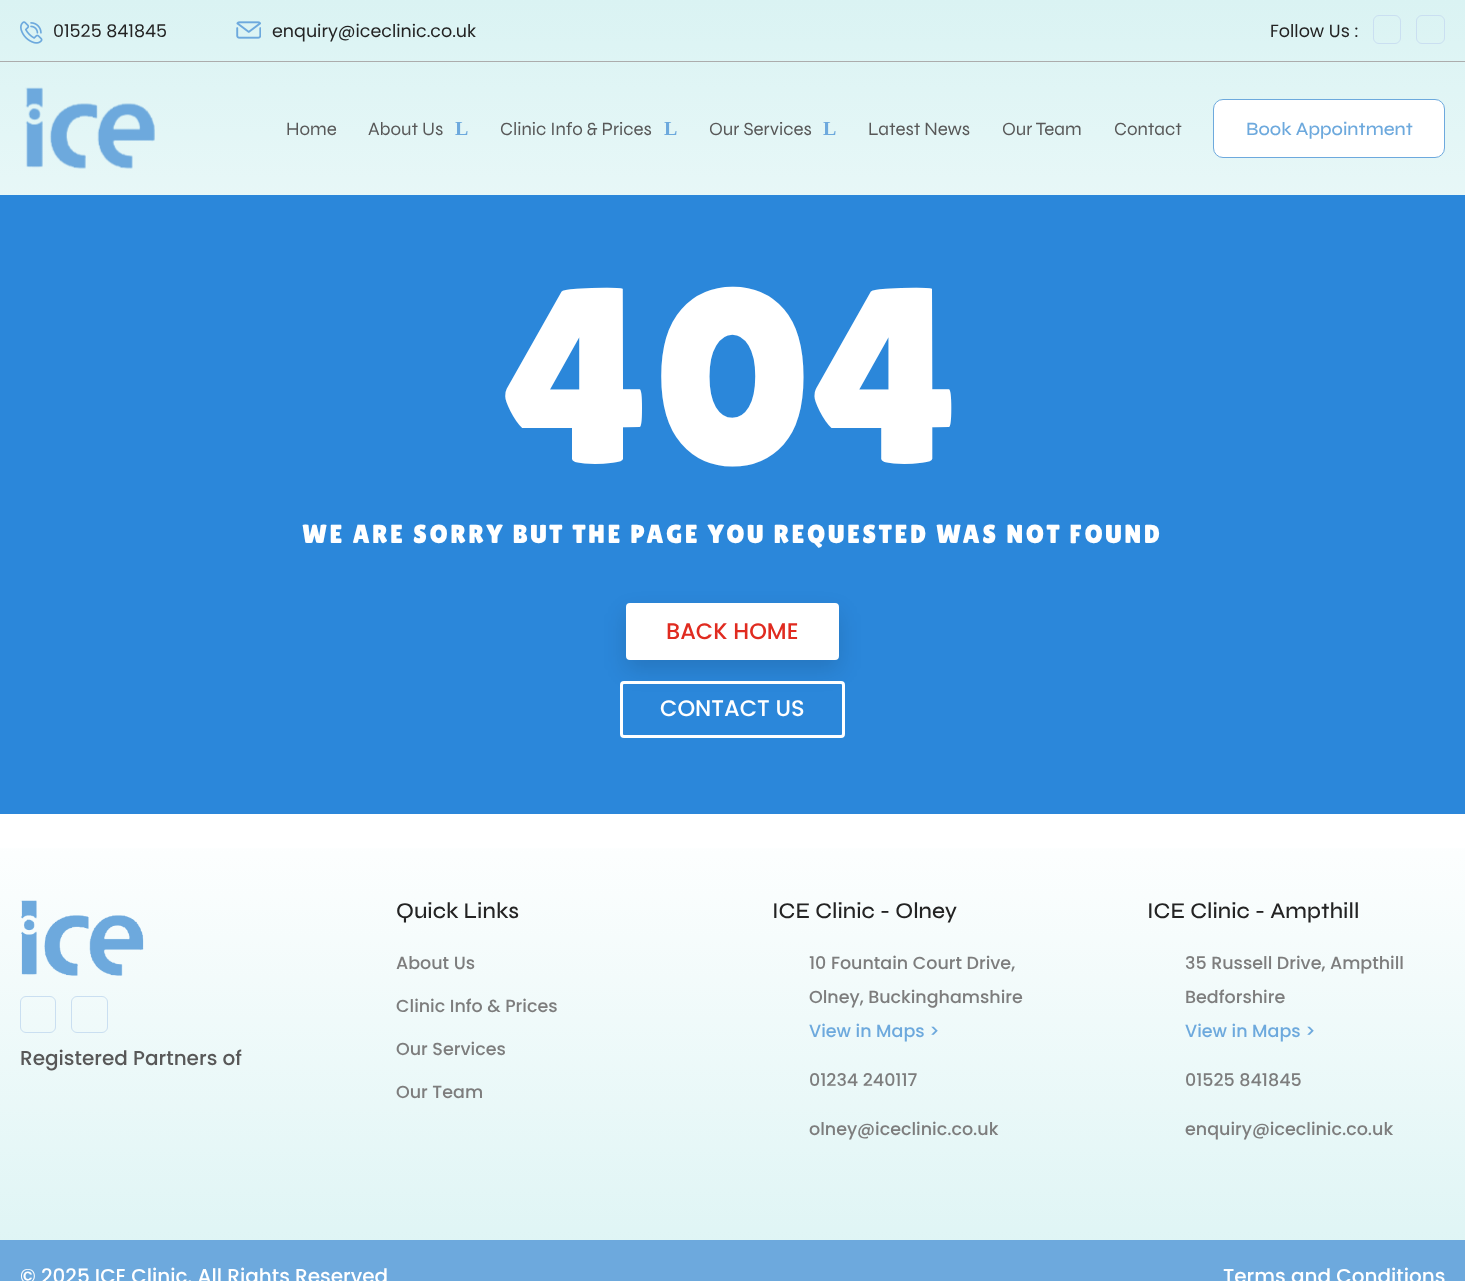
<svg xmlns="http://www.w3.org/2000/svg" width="1465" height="1281">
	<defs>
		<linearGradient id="g1" gradientUnits="userSpaceOnUse" x1="733" y1="0" x2="733" y2="544"><stop offset="0" stop-color="#DAF3F3" /><stop offset="1" stop-color="#FFFFFF" /></linearGradient>
		<linearGradient id="g2" gradientUnits="userSpaceOnUse" x1="-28" y1="301" x2="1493" y2="708"><stop offset="1" stop-color="#2B87DA" /><stop offset="1" stop-color="#29C4A9" /></linearGradient>
		<linearGradient id="g3" gradientUnits="userSpaceOnUse" x1="733" y1="814" x2="733" y2="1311"><stop offset="0" stop-color="#FFFFFF" /><stop offset="1" stop-color="#DAF3F3" /></linearGradient>
	</defs>
	<rect width="100%" height="100%" fill="#FFFFFF" />
	<rect x="0" y="0" width="1465" height="195" fill="url(#g1)" />
	<rect x="0" y="61" width="1465" height="1" fill="#ACACAC" />
	<image x="20" y="21" width="23" height="23" href="assets/img1.png" />
	<text x="53" y="37" font-family="Poppins" font-size="17.5" fill="#232323">01525 841845</text>
	<image x="236" y="21" width="25" height="18" href="assets/img2.png" />
	<g font-family="Poppins" font-size="17.5" fill="#232323">
		<text x="272" y="37">enquiry@iceclinic.co.uk</text>
		<text x="1270" y="37">Follow Us :</text>
	</g>
	<rect x="1373.5" y="15.5" width="27" height="28" rx="5.5" fill="none" stroke="#CADFF1" />
	<rect x="1416.5" y="15.5" width="28" height="28" rx="5.5" fill="none" stroke="#CADFF1" />
	<image x="25" y="87" width="130" height="82" href="assets/img3.png" />
	<g font-family="Syne" font-size="18.75" fill="#585858">
		<text x="286" y="135">Home</text>
		<text x="368" y="135">About Us</text>
	</g>
	<text x="455" y="135" font-family="Liberation Serif" font-size="20" font-weight="700" fill="#6DA9DD">L</text>
	<text x="500" y="135" font-family="Syne" font-size="18.75" fill="#585858">Clinic Info &amp; Prices</text>
	<text x="664" y="135" font-family="Liberation Serif" font-size="20" font-weight="700" fill="#6DA9DD">L</text>
	<text x="709" y="135" font-family="Syne" font-size="18.75" fill="#585858">Our Services</text>
	<text x="823" y="135" font-family="Liberation Serif" font-size="20" font-weight="700" fill="#6DA9DD">L</text>
	<g font-family="Syne" font-size="18.75" fill="#585858">
		<text x="868" y="135">Latest News</text>
		<text x="1002" y="135">Our Team</text>
		<text x="1114" y="135">Contact</text>
	</g>
	<rect x="1213.5" y="99.5" width="231" height="58" rx="9.5" fill="#FFFFFF" stroke="#6DA9DD" />
	<text x="1246" y="135" font-family="Syne" font-size="18.75" font-weight="500" fill="#6DA9DD">Book Appointment</text>
	<rect x="0" y="195" width="1465" height="619" fill="url(#g2)" />
	<text x="503" y="464" font-family="Lilita One" font-size="250" fill="#FFFFFF">404</text>
	<text x="302" y="543" font-family="Lilita One" font-size="26.25" letter-spacing="2.5" fill="#FFFFFF">WE ARE SORRY BUT THE PAGE YOU REQUESTED WAS NOT FOUND</text>
	<rect x="626" y="613" width="213" height="57" rx="4" fill="#000000" fill-opacity="0.12" filter="blur(11px)" />
	<rect x="627.5" y="604.5" width="210" height="54" rx="2.5" fill="#FFFFFF" stroke="#FFFFFF" stroke-width="3" />
	<text x="666" y="639" font-family="Poppins" font-size="22.5" font-weight="500" fill="#E02B20">BACK HOME</text>
	<rect x="621.5" y="682.5" width="222" height="54" rx="2.5" fill="none" stroke="#FFFFFF" stroke-width="3" />
	<text x="660" y="716" font-family="Poppins" font-size="22.5" font-weight="500" fill="#FFFFFF">CONTACT US</text>
	<rect x="0" y="848" width="1465" height="392" fill="url(#g3)" />
	<image x="20" y="900" width="124" height="76" href="assets/img4.png" />
	<rect x="20.5" y="996.5" width="35" height="36" rx="5.5" fill="none" stroke="#CADFF1" />
	<rect x="71.5" y="996.5" width="36" height="36" rx="5.5" fill="none" stroke="#CADFF1" />
	<text x="20" y="1065" font-family="Poppins" font-size="20" font-weight="500" fill="#585858">Registered Partners of</text>
	<text x="396" y="918" font-family="Syne" font-size="22.5" font-weight="500" fill="#232323">Quick Links</text>
	<g font-family="Poppins" font-size="17.5" font-weight="500" fill="#7D7D7D">
		<text x="396" y="969">About Us</text>
		<text x="396" y="1012">Clinic Info &amp; Prices</text>
		<text x="396" y="1055">Our Services</text>
		<text x="396" y="1098">Our Team</text>
	</g>
	<text x="772" y="918" font-family="Syne" font-size="22.5" font-weight="500" fill="#232323">ICE Clinic - Olney</text>
	<g font-family="Poppins" font-size="17.5" font-weight="500" fill="#7D7D7D">
		<text x="809" y="969">10 Fountain Court Drive,</text>
		<text x="809" y="1003">Olney, Buckinghamshire</text>
	</g>
	<text x="809" y="1037" font-family="Poppins" font-size="17.5" font-weight="500" fill="#6DA9DD">View in Maps &gt;</text>
	<g font-family="Poppins" font-size="17.5" font-weight="500" fill="#7D7D7D">
		<text x="809" y="1086">01234 240117</text>
		<text x="809" y="1135">olney@iceclinic.co.uk</text>
	</g>
	<text x="1147" y="918" font-family="Syne" font-size="22.5" font-weight="500" fill="#232323">ICE Clinic - Ampthill</text>
	<g font-family="Poppins" font-size="17.5" font-weight="500" fill="#7D7D7D">
		<text x="1185" y="969">35 Russell Drive, Ampthill</text>
		<text x="1185" y="1003">Bedforshire</text>
	</g>
	<text x="1185" y="1037" font-family="Poppins" font-size="17.5" font-weight="500" fill="#6DA9DD">View in Maps &gt;</text>
	<g font-family="Poppins" font-size="17.5" font-weight="500" fill="#7D7D7D">
		<text x="1185" y="1086">01525 841845</text>
		<text x="1185" y="1135">enquiry@iceclinic.co.uk</text>
	</g>
	<rect x="0" y="1240" width="1465" height="41" fill="#6DA9DD" />
	<g font-family="Poppins" font-size="20" font-weight="500" fill="#FFFFFF">
		<text x="20" y="1283">© 2025 ICE Clinic. All Rights Reserved</text>
		<text x="1223" y="1283">Terms and Conditions</text>
	</g>
</svg>
